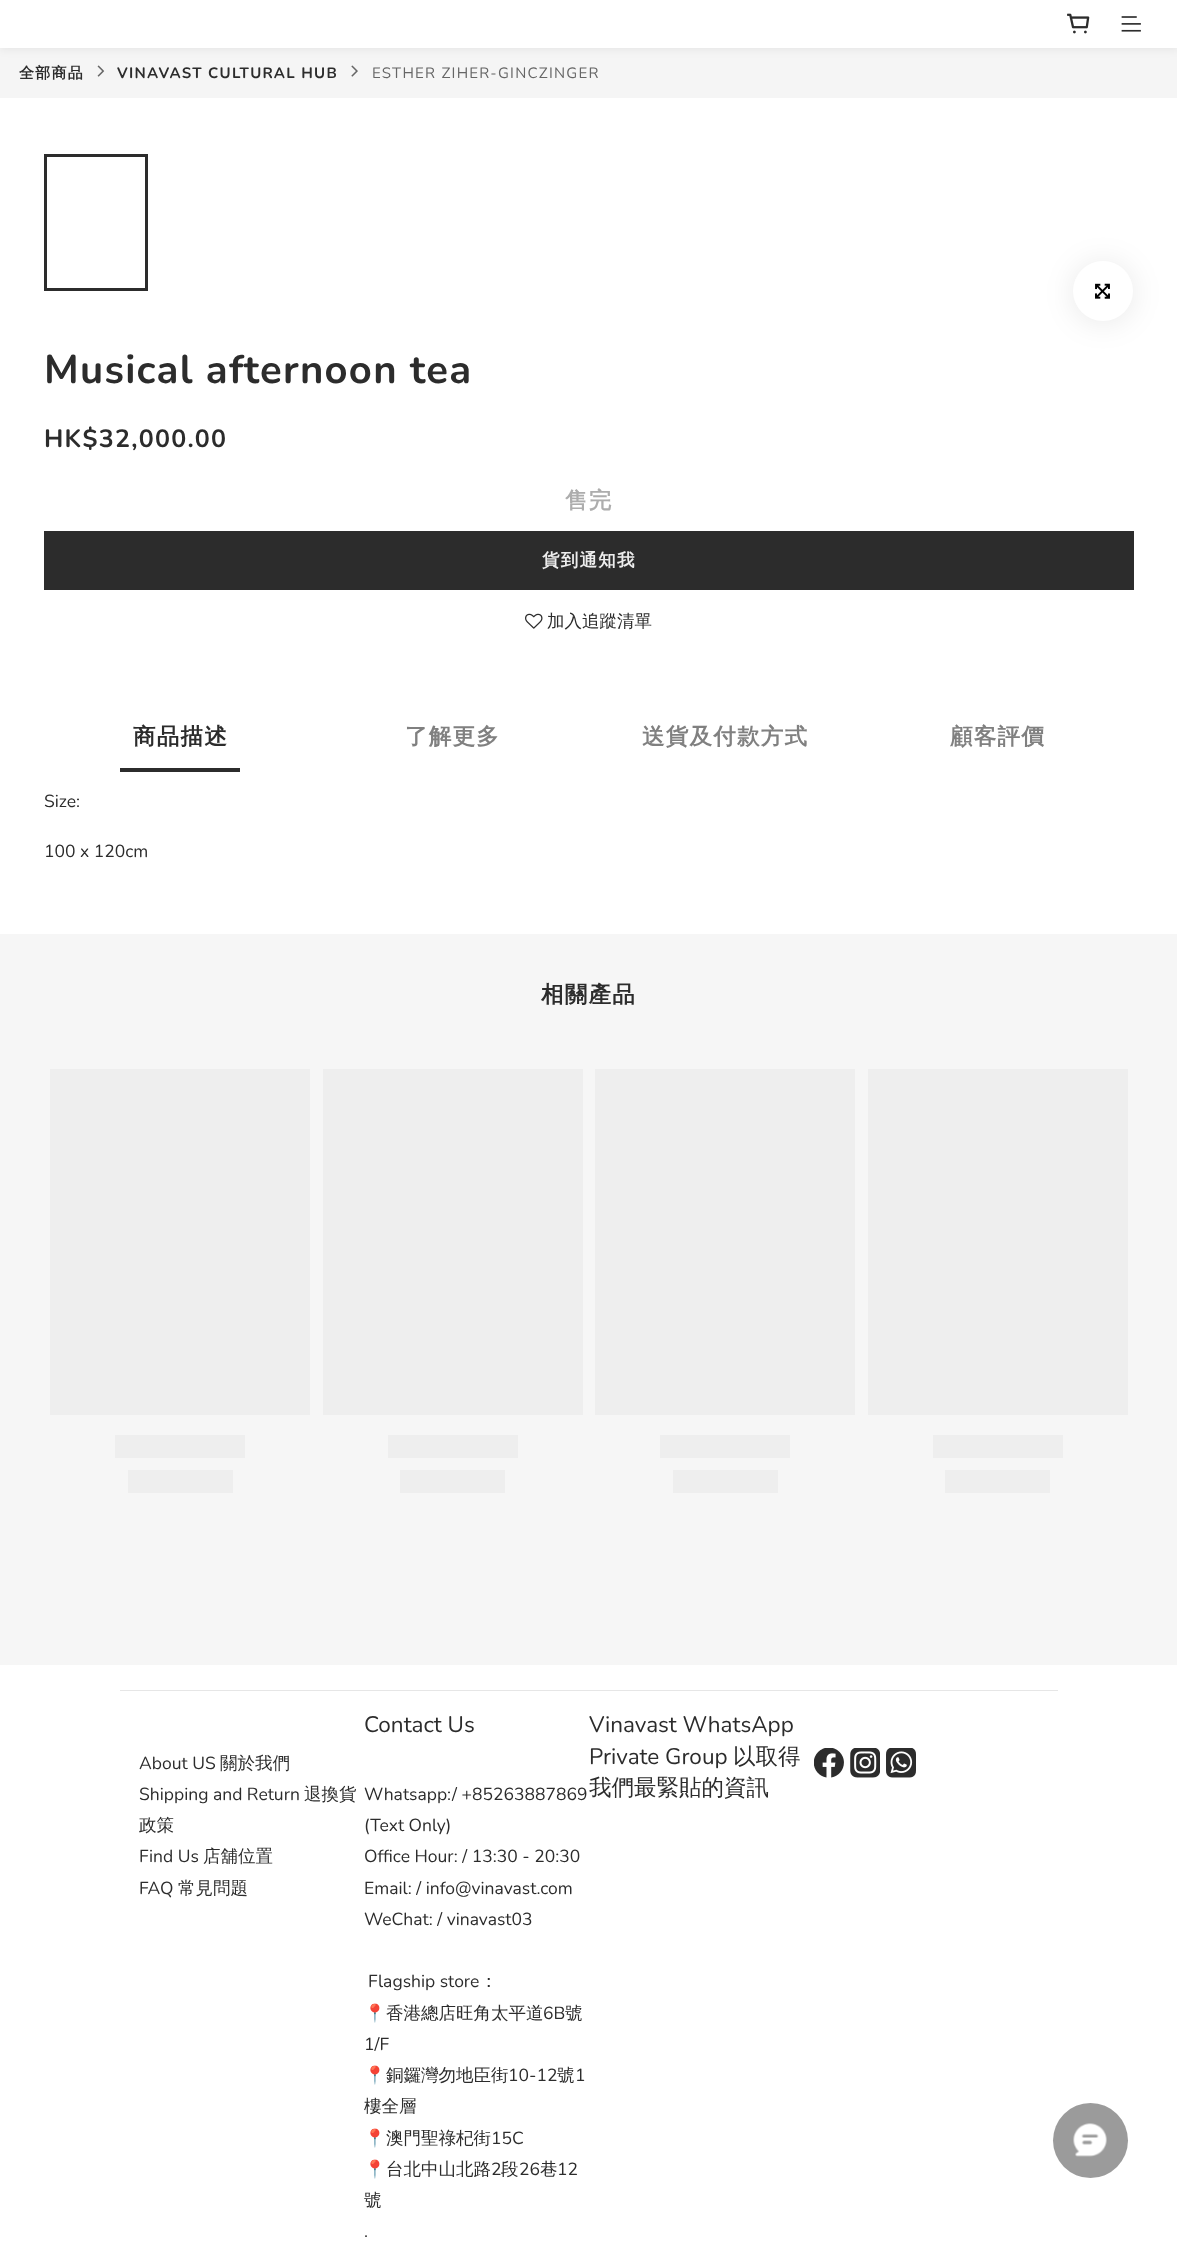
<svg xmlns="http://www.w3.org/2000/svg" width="1177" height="2247">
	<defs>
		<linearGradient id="g1" gradientUnits="userSpaceOnUse" x1="-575" y1="1242" x2="675" y2="1242"><stop offset="0.1" stop-color="#EEEEEE" /><stop offset="0.3" stop-color="#DFDFDF" /><stop offset="0.5" stop-color="#EEEEEE" /></linearGradient>
		<linearGradient id="g2" gradientUnits="userSpaceOnUse" x1="-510" y1="1446" x2="740" y2="1446"><stop offset="0.1" stop-color="#EEEEEE" /><stop offset="0.3" stop-color="#DFDFDF" /><stop offset="0.5" stop-color="#EEEEEE" /></linearGradient>
		<linearGradient id="g3" gradientUnits="userSpaceOnUse" x1="-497" y1="1481" x2="753" y2="1481"><stop offset="0.1" stop-color="#EEEEEE" /><stop offset="0.3" stop-color="#DFDFDF" /><stop offset="0.5" stop-color="#EEEEEE" /></linearGradient>
		<linearGradient id="g4" gradientUnits="userSpaceOnUse" x1="-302" y1="1242" x2="948" y2="1242"><stop offset="0.1" stop-color="#EEEEEE" /><stop offset="0.3" stop-color="#DFDFDF" /><stop offset="0.5" stop-color="#EEEEEE" /></linearGradient>
		<linearGradient id="g5" gradientUnits="userSpaceOnUse" x1="-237" y1="1446" x2="1013" y2="1446"><stop offset="0.1" stop-color="#EEEEEE" /><stop offset="0.3" stop-color="#DFDFDF" /><stop offset="0.5" stop-color="#EEEEEE" /></linearGradient>
		<linearGradient id="g6" gradientUnits="userSpaceOnUse" x1="-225" y1="1481" x2="1025" y2="1481"><stop offset="0.1" stop-color="#EEEEEE" /><stop offset="0.3" stop-color="#DFDFDF" /><stop offset="0.5" stop-color="#EEEEEE" /></linearGradient>
		<linearGradient id="g7" gradientUnits="userSpaceOnUse" x1="-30" y1="1242" x2="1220" y2="1242"><stop offset="0.1" stop-color="#EEEEEE" /><stop offset="0.3" stop-color="#DFDFDF" /><stop offset="0.5" stop-color="#EEEEEE" /></linearGradient>
		<linearGradient id="g8" gradientUnits="userSpaceOnUse" x1="35" y1="1446" x2="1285" y2="1446"><stop offset="0.1" stop-color="#EEEEEE" /><stop offset="0.3" stop-color="#DFDFDF" /><stop offset="0.5" stop-color="#EEEEEE" /></linearGradient>
		<linearGradient id="g9" gradientUnits="userSpaceOnUse" x1="48" y1="1481" x2="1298" y2="1481"><stop offset="0.1" stop-color="#EEEEEE" /><stop offset="0.3" stop-color="#DFDFDF" /><stop offset="0.5" stop-color="#EEEEEE" /></linearGradient>
		<linearGradient id="g10" gradientUnits="userSpaceOnUse" x1="243" y1="1242" x2="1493" y2="1242"><stop offset="0.1" stop-color="#EEEEEE" /><stop offset="0.3" stop-color="#DFDFDF" /><stop offset="0.5" stop-color="#EEEEEE" /></linearGradient>
		<linearGradient id="g11" gradientUnits="userSpaceOnUse" x1="308" y1="1446" x2="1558" y2="1446"><stop offset="0.1" stop-color="#EEEEEE" /><stop offset="0.3" stop-color="#DFDFDF" /><stop offset="0.5" stop-color="#EEEEEE" /></linearGradient>
		<linearGradient id="g12" gradientUnits="userSpaceOnUse" x1="320" y1="1481" x2="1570" y2="1481"><stop offset="0.1" stop-color="#EEEEEE" /><stop offset="0.3" stop-color="#DFDFDF" /><stop offset="0.5" stop-color="#EEEEEE" /></linearGradient>
	</defs>
	<rect width="100%" height="100%" fill="#FFFFFF" />
	<rect x="0" y="48" width="1177" height="50" fill="#F5F5F5" />
	<rect x="0" y="3" width="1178" height="47" fill="#000000" fill-opacity="0.06" filter="blur(4px)" />
	<rect x="0" y="0" width="1177" height="48" fill="#FFFFFF" />
	<image x="1067" y="13" width="23" height="21" href="assets/img1.png" />
	<image x="1121" y="16" width="20" height="16" href="assets/img2.png" />
	<text x="19" y="78" font-family="WenQuanYi Zen Hei" font-size="15" font-weight="700" letter-spacing="1.25" fill="#2C2C2C">全部商品</text>
	<image x="97" y="65" width="8" height="12" href="assets/img3.png" />
	<text x="117" y="78" font-family="Nunito" font-size="15" font-weight="700" letter-spacing="1.25" fill="#2C2C2C">VINAVAST CULTURAL HUB</text>
	<image x="351" y="65" width="7" height="12" href="assets/img4.png" />
	<text x="372" y="78" font-family="Nunito" font-size="15" letter-spacing="1.25" fill="#666666">ESTHER ZIHER-GINCZINGER</text>
	<rect x="45.5" y="155.5" width="101" height="134" fill="none" stroke="#2C2C2C" stroke-width="3" />
	<rect x="1073" y="263" width="60" height="60" rx="30" fill="#000000" fill-opacity="0.09" filter="blur(15px)" />
	<circle cx="1103" cy="291" r="30" fill="#FFFFFF" />
	<image x="1095" y="283" width="15" height="16" href="assets/img5.png" />
	<text x="44" y="383" font-family="Nunito" font-size="40" font-weight="700" letter-spacing="1.25" fill="#2C2C2C">Musical afternoon tea</text>
	<text x="44" y="447" font-family="Nunito" font-size="25" font-weight="700" letter-spacing="1.25" fill="#2C2C2C">HK$32,000.00</text>
	<text x="565" y="508" font-family="WenQuanYi Zen Hei" font-size="22.5" font-weight="700" letter-spacing="1.25" fill="#ADADAD">售完</text>
	<rect x="44" y="531" width="1090" height="59" fill="#2C2C2C" />
	<text x="542" y="566" font-family="WenQuanYi Zen Hei" font-size="17.5" font-weight="700" letter-spacing="1.25" fill="#EDEDED">貨到通知我</text>
	<image x="525" y="613" width="18" height="16" href="assets/img6.png" />
	<text x="547" y="627" font-family="WenQuanYi Zen Hei" font-size="17.5" font-weight="500" fill="#2C2C2C">加入追蹤清單</text>
	<text x="133" y="744" font-family="WenQuanYi Zen Hei" font-size="22.5" font-weight="700" letter-spacing="1.25" fill="#2C2C2C">商品描述</text>
	<rect x="120" y="768" width="120" height="4" fill="#2C2C2C" />
	<g font-family="WenQuanYi Zen Hei" font-size="22.5" font-weight="700" letter-spacing="1.25" fill="#808080">
		<text x="405" y="744">了解更多</text>
		<text x="642" y="744">送貨及付款方式</text>
		<text x="950" y="744">顧客評價</text>
	</g>
	<g font-family="Nunito" font-size="17.5" fill="#2C2C2C">
		<text x="44" y="807">Size:</text>
		<text x="44" y="857">100 x 120cm</text>
	</g>
	<rect x="0" y="934" width="1177" height="731" fill="#F6F6F6" />
	<text x="541" y="1002" font-family="WenQuanYi Zen Hei" font-size="22.5" font-weight="700" letter-spacing="1.25" fill="#2C2C2C">相關產品</text>
	<rect x="50" y="1069" width="260" height="346" fill="url(#g1)" />
	<rect x="115" y="1435" width="130" height="23" fill="url(#g2)" />
	<rect x="128" y="1470" width="105" height="23" fill="url(#g3)" />
	<rect x="323" y="1069" width="260" height="346" fill="url(#g4)" />
	<rect x="388" y="1435" width="130" height="23" fill="url(#g5)" />
	<rect x="400" y="1470" width="105" height="23" fill="url(#g6)" />
	<rect x="595" y="1069" width="260" height="346" fill="url(#g7)" />
	<rect x="660" y="1435" width="130" height="23" fill="url(#g8)" />
	<rect x="673" y="1470" width="105" height="23" fill="url(#g9)" />
	<rect x="868" y="1069" width="260" height="346" fill="url(#g10)" />
	<rect x="933" y="1435" width="130" height="23" fill="url(#g11)" />
	<rect x="945" y="1470" width="105" height="23" fill="url(#g12)" />
	<rect x="120" y="1690" width="938" height="1" fill="#E6E6E6" />
	<text x="139" y="1769" font-family="Nunito" font-size="17.5" fill="#2C2C2C">About US</text>
	<text x="220" y="1769" font-family="WenQuanYi Zen Hei" font-size="17.5" font-weight="500" fill="#2C2C2C">關於我們</text>
	<text x="139" y="1800" font-family="Nunito" font-size="17.5" fill="#2C2C2C">Shipping and Return</text>
	<g font-family="WenQuanYi Zen Hei" font-size="17.5" font-weight="500" fill="#2C2C2C">
		<text x="304" y="1800">退換貨</text>
		<text x="139" y="1831">政策</text>
	</g>
	<text x="139" y="1862" font-family="Nunito" font-size="17.5" fill="#2C2C2C">Find Us</text>
	<text x="203" y="1862" font-family="WenQuanYi Zen Hei" font-size="17.5" font-weight="500" fill="#2C2C2C">店舖位置</text>
	<text x="139" y="1894" font-family="Nunito" font-size="17.5" fill="#2C2C2C">FAQ</text>
	<text x="178" y="1894" font-family="WenQuanYi Zen Hei" font-size="17.5" font-weight="500" fill="#2C2C2C">常見問題</text>
	<text x="364" y="1732" font-family="Nunito" font-size="22.5" fill="#2C2C2C">Contact Us</text>
	<g font-family="Nunito" font-size="17.5" fill="#2C2C2C">
		<text x="364" y="1800">Whatsapp:/ +85263887869</text>
		<text x="364" y="1831">(Text Only)</text>
		<text x="364" y="1862">Office Hour: / 13:30 - 20:30</text>
		<text x="364" y="1894">Email: / info@vinavast.com</text>
		<text x="364" y="1925">WeChat: / vinavast03</text>
		<text x="368" y="1987">Flagship store</text>
	</g>
	<text x="480" y="1987" font-family="WenQuanYi Zen Hei" font-size="17.5" font-weight="500" fill="#2C2C2C">：</text>
	<text x="364" y="2019" font-family="Noto Color Emoji" font-size="17.5" fill="#2C2C2C">📍</text>
	<text x="386" y="2019" font-family="WenQuanYi Zen Hei" font-size="17.5" font-weight="500" fill="#2C2C2C">香港總店旺角太平道</text>
	<text x="543" y="2019" font-family="Nunito" font-size="17.5" fill="#2C2C2C">6B</text>
	<text x="565" y="2019" font-family="WenQuanYi Zen Hei" font-size="17.5" font-weight="500" fill="#2C2C2C">號</text>
	<text x="364" y="2050" font-family="Nunito" font-size="17.5" fill="#2C2C2C">1/F</text>
	<text x="364" y="2081" font-family="Noto Color Emoji" font-size="17.5" fill="#2C2C2C">📍</text>
	<text x="386" y="2081" font-family="WenQuanYi Zen Hei" font-size="17.5" font-weight="500" fill="#2C2C2C">銅鑼灣勿地臣街</text>
	<text x="508" y="2081" font-family="Nunito" font-size="17.5" fill="#2C2C2C">10-12</text>
	<text x="557" y="2081" font-family="WenQuanYi Zen Hei" font-size="17.5" font-weight="500" fill="#2C2C2C">號</text>
	<text x="575" y="2081" font-family="Nunito" font-size="17.5" fill="#2C2C2C">1</text>
	<text x="364" y="2112" font-family="WenQuanYi Zen Hei" font-size="17.5" font-weight="500" fill="#2C2C2C">樓全層</text>
	<text x="364" y="2144" font-family="Noto Color Emoji" font-size="17.5" fill="#2C2C2C">📍</text>
	<text x="386" y="2144" font-family="WenQuanYi Zen Hei" font-size="17.5" font-weight="500" fill="#2C2C2C">澳門聖祿杞街</text>
	<text x="491" y="2144" font-family="Nunito" font-size="17.5" fill="#2C2C2C">15C</text>
	<text x="364" y="2175" font-family="Noto Color Emoji" font-size="17.5" fill="#2C2C2C">📍</text>
	<text x="386" y="2175" font-family="WenQuanYi Zen Hei" font-size="17.5" font-weight="500" fill="#2C2C2C">台北中山北路</text>
	<text x="491" y="2175" font-family="Nunito" font-size="17.5" fill="#2C2C2C">2</text>
	<text x="501" y="2175" font-family="WenQuanYi Zen Hei" font-size="17.5" font-weight="500" fill="#2C2C2C">段</text>
	<text x="519" y="2175" font-family="Nunito" font-size="17.5" fill="#2C2C2C">26</text>
	<text x="540" y="2175" font-family="WenQuanYi Zen Hei" font-size="17.5" font-weight="500" fill="#2C2C2C">巷</text>
	<text x="557" y="2175" font-family="Nunito" font-size="17.5" fill="#2C2C2C">12</text>
	<text x="364" y="2206" font-family="WenQuanYi Zen Hei" font-size="17.5" font-weight="500" fill="#2C2C2C">號</text>
	<text x="364" y="2237" font-family="Nunito" font-size="17.5" fill="#2C2C2C">.</text>
	<g font-family="Nunito" font-size="22.5" fill="#2C2C2C">
		<text x="589" y="1732">Vinavast WhatsApp</text>
		<text x="589" y="1764">Private Group</text>
	</g>
	<g font-family="WenQuanYi Zen Hei" font-size="22.5" font-weight="500" fill="#2C2C2C">
		<text x="733" y="1764">以取得</text>
		<text x="589" y="1795">我們最緊貼的資訊</text>
	</g>
	<image x="814" y="1748" width="30" height="30" href="assets/img7.png" />
	<image x="850" y="1748" width="30" height="30" href="assets/img8.png" />
	<image x="886" y="1748" width="30" height="30" href="assets/img9.png" />
	<circle cx="1090.5" cy="2140.5" r="37.5" fill="#9B9B9B" />
	<image x="1073" y="2123" width="34" height="34" href="assets/img10.png" />
</svg>
